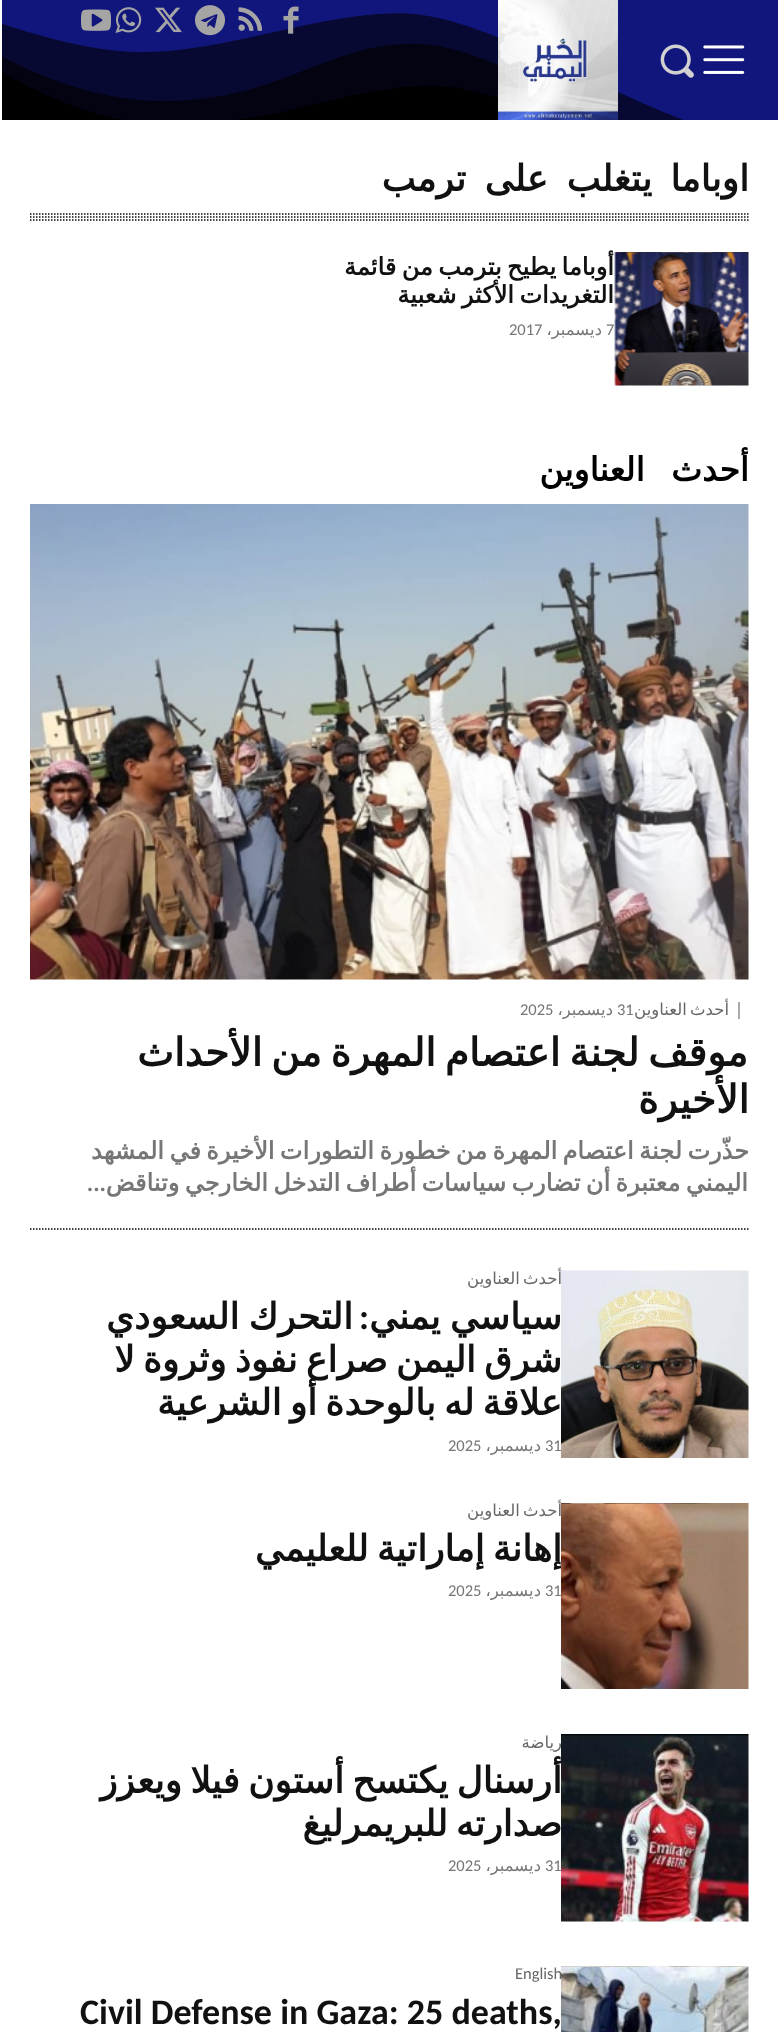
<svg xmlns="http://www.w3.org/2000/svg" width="778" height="2032">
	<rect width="100%" height="100%" fill="#FFFFFF" />
	<rect x="2" y="13" width="682" height="107" fill="#000000" />
	<image x="2" y="0" width="776" height="120" href="assets/img1.png" />
	<image x="703" y="45" width="42" height="29" href="assets/img2.png" />
	<image x="660" y="44" width="34" height="34" href="assets/img3.png" />
	<image x="498" y="0" width="120" height="120" href="assets/img4.png" />
	<image x="283" y="6" width="16" height="28" href="assets/img5.png" />
	<image x="238" y="7" width="25" height="24" href="assets/img6.png" />
	<image x="195" y="5" width="30" height="31" href="assets/img7.png" />
	<image x="155" y="7" width="27" height="26" href="assets/img8.png" />
	<image x="115" y="7" width="27" height="26" href="assets/img9.png" />
	<image x="81" y="9" width="30" height="22" href="assets/img10.png" />
	<text x="749" y="191" word-spacing="7" font-family="DejaVu Sans" font-size="36" font-weight="700" letter-spacing="-1.5" direction="rtl" fill="#111111">اوباما يتغلب على ترمب</text>
	<path d="M30 214H748.5" fill="none" stroke="#0A0A0A" stroke-width="1.5" stroke-dasharray="1.5 1.5" />
	<path d="M30 217H748.5" fill="none" stroke="#0A0A0A" stroke-width="1.5" stroke-dasharray="1.5 1.5" />
	<path d="M30 220H748.5" fill="none" stroke="#0A0A0A" stroke-width="1.5" stroke-dasharray="1.5 1.5" />
	<image x="614" y="252" width="135" height="134" href="assets/img11.png" />
	<g font-family="DejaVu Sans" font-size="24" font-weight="700" direction="rtl" fill="#111111">
		<text x="614" y="275" word-spacing="-2.25">أوباما يطيح بترمب من قائمة</text>
		<text x="614" y="303" word-spacing="-2.25">التغريدات الأكثر شعبية</text>
	</g>
	<text x="606" y="335" font-family="Carlito" font-size="16.5" fill="#767676">7</text>
	<text x="602" y="335" font-family="DejaVu Sans" font-size="16.5" direction="rtl" fill="#767676">ديسمبر،</text>
	<text x="509" y="335" font-family="Carlito" font-size="16.5" fill="#767676">2017</text>
	<text x="749" y="481" word-spacing="16" font-family="DejaVu Sans" font-size="33" font-weight="700" letter-spacing="-1.5" direction="rtl" fill="#000000">أحدث العناوين</text>
	<path d="M30 1229H748.5" fill="none" stroke="#000000" stroke-width="1.5" stroke-dasharray="1.5 1.5" />
	<image x="30" y="504" width="719" height="476" href="assets/img12.png" />
	<rect x="738" y="1002" width="2" height="17" fill="#AAAAAA" />
	<text x="729" y="1015" word-spacing="-2" font-family="DejaVu Sans" font-size="16.5" direction="rtl" fill="#666666">أحدث العناوين</text>
	<text x="617" y="1015" font-family="Carlito" font-size="16.5" fill="#767676">31</text>
	<text x="613" y="1015" font-family="DejaVu Sans" font-size="16.5" direction="rtl" fill="#767676">ديسمبر،</text>
	<text x="520" y="1015" font-family="Carlito" font-size="16.5" fill="#767676">2025</text>
	<g font-family="DejaVu Sans" font-size="39" font-weight="700" direction="rtl" fill="#111111">
		<text x="748" y="1066" word-spacing="-3.5">موقف لجنة اعتصام المهرة من الأحداث</text>
		<text x="749" y="1113">الأخيرة</text>
	</g>
	<g font-family="DejaVu Sans" font-size="24" font-weight="700" direction="rtl" fill="#767676">
		<text x="749" y="1159" word-spacing="-2.25">حذّرت لجنة اعتصام المهرة من خطورة التطورات الأخيرة في المشهد</text>
		<text x="748" y="1191" word-spacing="-2.25">اليمني معتبرة أن تضارب سياسات أطراف التدخل الخارجي وتناقض</text>
	</g>
	<text x="106" y="1191" font-family="Carlito" font-size="24" font-weight="700" direction="rtl" fill="#767676">...</text>
	<image x="561" y="1270" width="188" height="188" href="assets/img13.png" />
	<text x="562" y="1284" word-spacing="-2" font-family="DejaVu Sans" font-size="16.5" direction="rtl" fill="#666666">أحدث العناوين</text>
	<text x="562" y="1329" word-spacing="-2.25" font-family="DejaVu Sans" font-size="36" font-weight="700" direction="rtl" fill="#111111">سياسي يمني</text>
	<text x="369" y="1329" font-family="Carlito" font-size="36" font-weight="700" direction="rtl" fill="#111111">:</text>
	<g font-family="DejaVu Sans" font-size="36" font-weight="700" direction="rtl" fill="#111111">
		<text x="353" y="1329" word-spacing="-2.25">التحرك السعودي</text>
		<text x="562" y="1372" word-spacing="-3.25">شرق اليمن صراع نفوذ وثروة لا</text>
		<text x="562" y="1415" word-spacing="-3.25">علاقة له بالوحدة أو الشرعية</text>
	</g>
	<text x="545" y="1451" font-family="Carlito" font-size="16.5" fill="#767676">31</text>
	<text x="541" y="1451" font-family="DejaVu Sans" font-size="16.5" direction="rtl" fill="#767676">ديسمبر،</text>
	<text x="448" y="1451" font-family="Carlito" font-size="16.5" fill="#767676">2025</text>
	<image x="561" y="1503" width="188" height="186" href="assets/img14.png" />
	<text x="562" y="1516" word-spacing="-2" font-family="DejaVu Sans" font-size="16.5" direction="rtl" fill="#666666">أحدث العناوين</text>
	<text x="562" y="1561" word-spacing="-3.25" font-family="DejaVu Sans" font-size="36" font-weight="700" direction="rtl" fill="#111111">إهانة إماراتية للعليمي</text>
	<text x="545" y="1596" font-family="Carlito" font-size="16.5" fill="#767676">31</text>
	<text x="541" y="1596" font-family="DejaVu Sans" font-size="16.5" direction="rtl" fill="#767676">ديسمبر،</text>
	<text x="448" y="1596" font-family="Carlito" font-size="16.5" fill="#767676">2025</text>
	<image x="561" y="1734" width="188" height="188" href="assets/img15.png" />
	<text x="562" y="1748" font-family="DejaVu Sans" font-size="16.5" direction="rtl" fill="#666666">رياضة</text>
	<g font-family="DejaVu Sans" font-size="36" font-weight="700" direction="rtl" fill="#111111">
		<text x="562" y="1793" word-spacing="-3.25">أرسنال يكتسح أستون فيلا ويعزز</text>
		<text x="562" y="1836" word-spacing="-3.25">صدارته للبريمرليغ</text>
	</g>
	<text x="545" y="1871" font-family="Carlito" font-size="16.5" fill="#767676">31</text>
	<text x="541" y="1871" font-family="DejaVu Sans" font-size="16.5" direction="rtl" fill="#767676">ديسمبر،</text>
	<text x="448" y="1871" font-family="Carlito" font-size="16.5" fill="#767676">2025</text>
	<image x="561" y="1966" width="188" height="66" href="assets/img16.png" />
	<text x="515" y="1979" font-family="Carlito" font-size="16.5" fill="#666666">English</text>
	<text x="80" y="2024" font-family="Carlito" font-size="36" font-weight="700" fill="#111111">Civil Defense in Gaza: 25 deaths,</text>
</svg>
